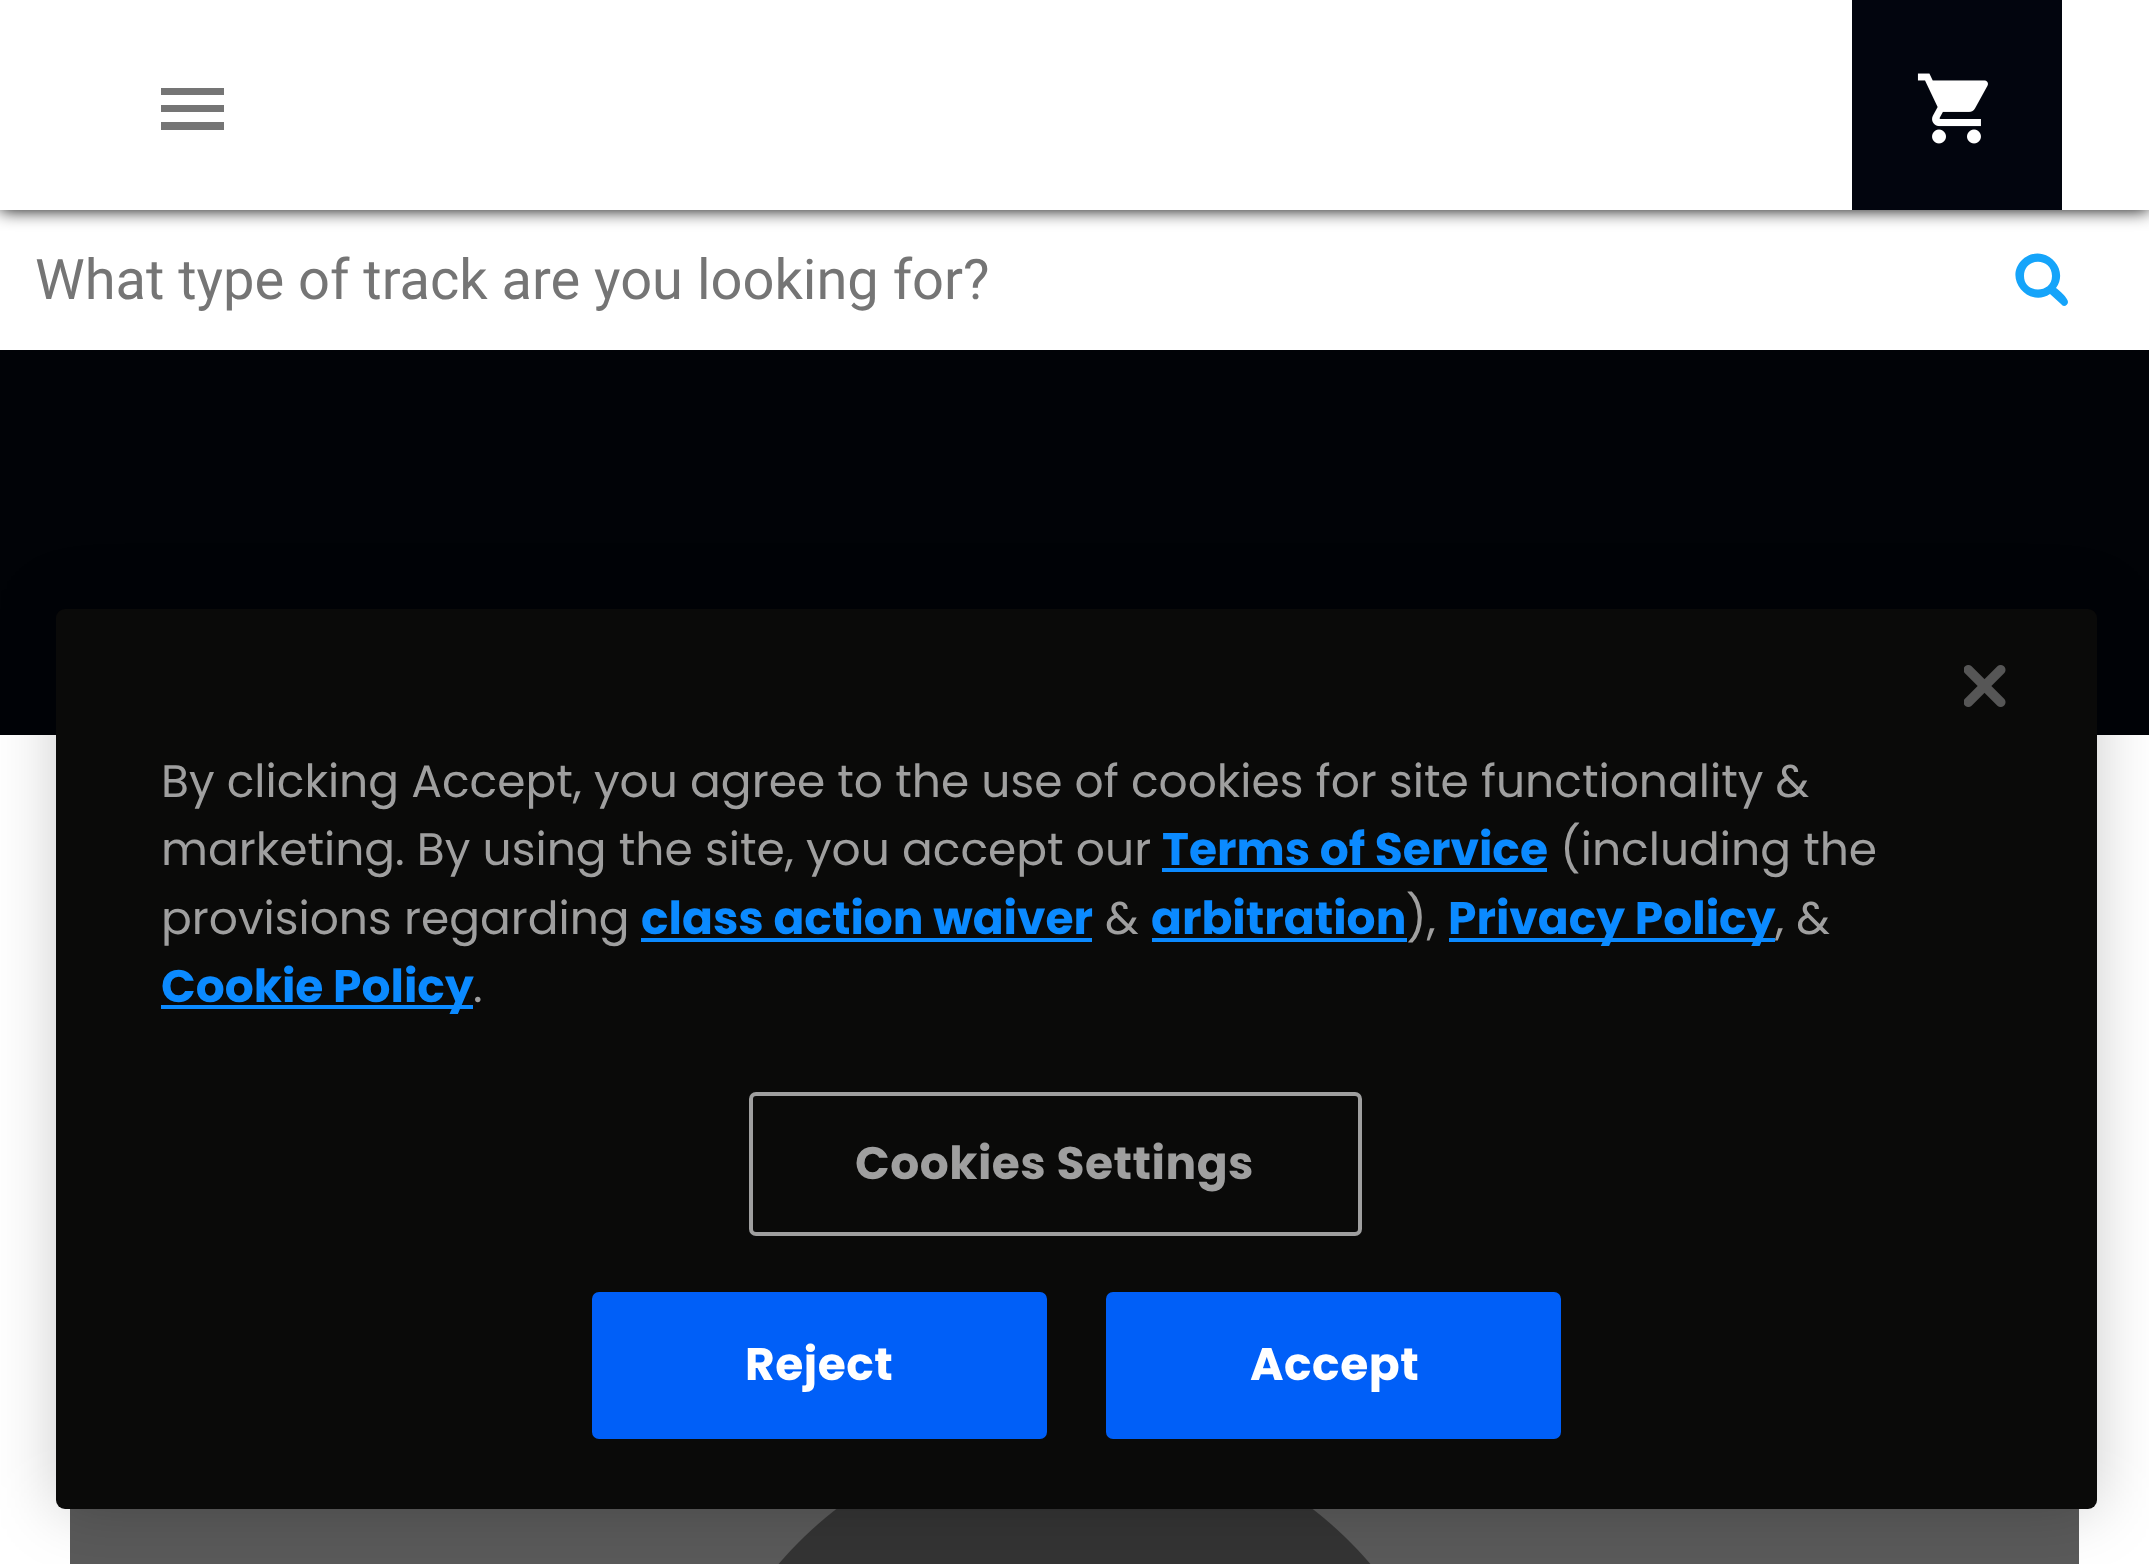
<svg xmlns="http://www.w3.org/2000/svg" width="2149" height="1564">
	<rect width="100%" height="100%" fill="#FFFFFF" />
	<rect x="0" y="0" width="2149" height="210" fill="#000000" filter="blur(9px)" />
	<rect x="0" y="0" width="2149" height="210" fill="#FFFFFF" />
	<path d="M161 88H224V95H161ZM161 112V105H224V112ZM161 130V122H224V130Z" fill="#757575" />
	<rect x="1852" y="0" width="210" height="210" fill="#02050E" />
	<image x="1917" y="73" width="71" height="71" href="assets/img1.png" />
	<text x="35" y="299" font-family="Roboto" font-size="56" fill="#757575">What type of track are you looking for?</text>
	<path d="M2052 276C2052 294 2024 294 2024 276C2024 257 2052 257 2052 276ZM2068 302C2068 298 2059 290 2056 288C2071 267 2042 241 2022 260C2003 279 2029 308 2050 294L2061 304C2062 305 2063 306 2064 306C2066 306 2068 304 2068 302Z" fill="#15A4FA" />
	<rect x="0" y="350" width="2149" height="385" fill="#010307" />
	<image x="70" y="1509" width="2009" height="55" href="assets/img2.png" />
	<rect x="56" y="609" width="2041" height="900" rx="9" fill="#000000" fill-opacity="0.2" filter="blur(31.5px)" />
	<rect x="56" y="609" width="2041" height="900" rx="9" fill="#0A0A09" />
	<image x="1964" y="665" width="42" height="42" href="assets/img3.png" />
	<g font-family="Poppins" font-size="45.55" fill="#9F9F9F">
		<text x="161" y="797">By clicking Accept, you agree to the use of cookies for site functionality &amp;</text>
		<text x="161" y="865">marketing. By using the site, you accept our</text>
	</g>
	<text x="1162" y="865" font-family="Poppins" font-size="45.55" font-weight="700" fill="#0B8AFF">Terms of Service</text>
	<rect x="1162" y="868" width="385" height="4" fill="#0B8AFF" />
	<g font-family="Poppins" font-size="45.55" fill="#9F9F9F">
		<text x="1560" y="865">(including the</text>
		<text x="161" y="934">provisions regarding</text>
	</g>
	<text x="641" y="934" font-family="Poppins" font-size="45.55" font-weight="700" fill="#0B8AFF">class action waiver</text>
	<rect x="641" y="938" width="451" height="4" fill="#0B8AFF" />
	<text x="1105" y="934" font-family="Poppins" font-size="45.55" fill="#9F9F9F">&amp;</text>
	<text x="1151" y="934" font-family="Poppins" font-size="45.55" font-weight="700" fill="#0B8AFF">arbitration</text>
	<rect x="1152" y="938" width="255" height="4" fill="#0B8AFF" />
	<text x="1406" y="934" font-family="Poppins" font-size="45.55" fill="#9F9F9F">),</text>
	<rect x="1449" y="938" width="326" height="4" fill="#0B8AFF" />
	<text x="1448" y="934" font-family="Poppins" font-size="45.55" font-weight="700" fill="#0B8AFF">Privacy Policy</text>
	<text x="1775" y="934" font-family="Poppins" font-size="45.55" fill="#9F9F9F">, &amp;</text>
	<rect x="161" y="1005" width="312" height="4" fill="#0B8AFF" />
	<text x="161" y="1002" font-family="Poppins" font-size="45.55" font-weight="700" fill="#0B8AFF">Cookie Policy</text>
	<text x="473" y="1002" font-family="Poppins" font-size="45.55" fill="#9F9F9F">.</text>
	<rect x="751" y="1094" width="609" height="140" rx="5" fill="none" stroke="#9F9F9F" stroke-width="4" />
	<text x="855" y="1179" font-family="Poppins" font-size="45.55" font-weight="700" letter-spacing="0.5" fill="#9F9F9F">Cookies Settings</text>
	<rect x="594" y="1294" width="451" height="143" rx="5" fill="#005FF8" stroke="#005FF8" stroke-width="4" />
	<text x="745" y="1380" font-family="Poppins" font-size="45.55" font-weight="700" letter-spacing="0.5" fill="#FFFFFF">Reject</text>
	<rect x="1108" y="1294" width="451" height="143" rx="5" fill="#005FF8" stroke="#005FF8" stroke-width="4" />
	<text x="1250" y="1380" font-family="Poppins" font-size="45.55" font-weight="700" letter-spacing="0.5" fill="#FFFFFF">Accept</text>
</svg>
